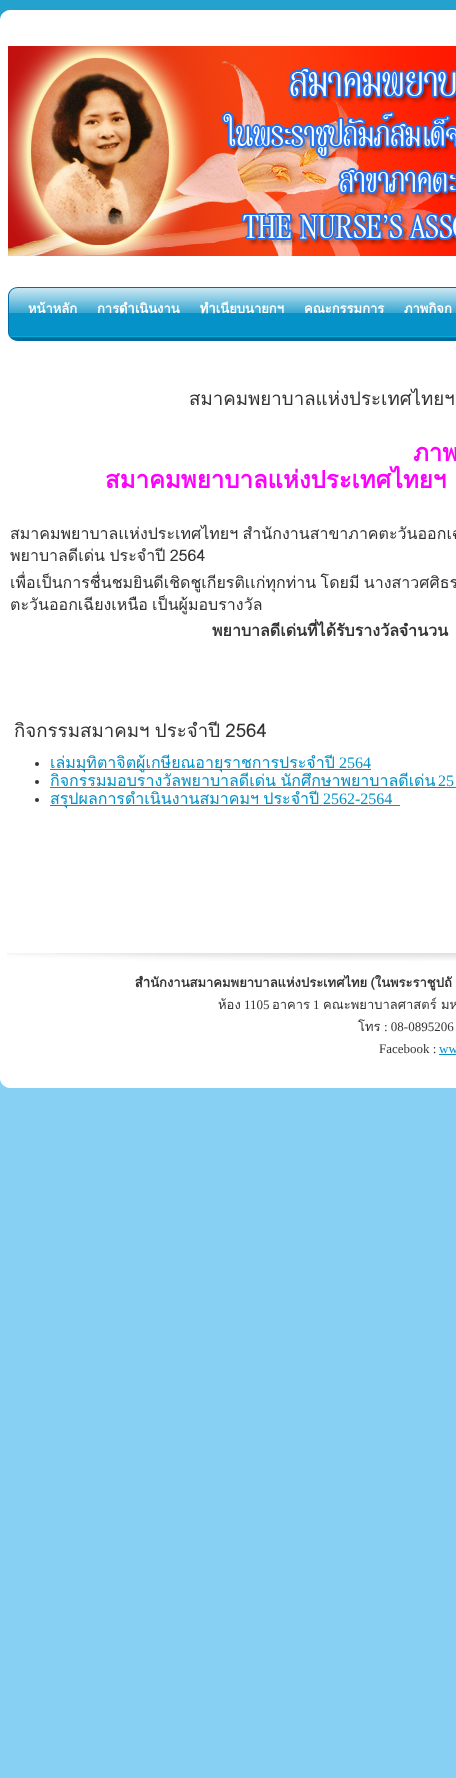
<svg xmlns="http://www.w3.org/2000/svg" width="456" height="1778">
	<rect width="100%" height="100%" fill="#87D0F4" />
	<image x="0" y="0" width="456" height="19" href="assets/img1.png" />
	<rect x="0" y="19" width="456" height="1060" fill="#FFFFFF" />
	<image x="8" y="46" width="448" height="210" href="assets/img2.png" />
	<image x="8" y="287" width="448" height="54" href="assets/img3.png" />
	<g font-family="Loma" font-size="13" font-weight="700" fill="#FFFFFF">
		<text x="28" y="313">หน้าหลัก</text>
		<text x="97" y="313">การดำเนินงาน</text>
		<text x="200" y="313">ทำเนียบนายกฯ</text>
		<text x="304" y="313">คณะกรรมการ</text>
		<text x="404" y="313">ภาพกิจก</text>
	</g>
	<text x="189" y="405" word-spacing="-1" font-family="Loma" font-size="18.7" fill="#333333">สมาคมพยาบาลแห่งประเทศไทยฯ</text>
	<g font-family="Loma" font-size="24" font-weight="700" fill="#FF00FF">
		<text x="413" y="461">ภาพ</text>
		<text x="105" y="488" word-spacing="-2">สมาคมพยาบาลแห่งประเทศไทยฯ</text>
	</g>
	<g font-family="Loma" font-size="16" fill="#333333">
		<text x="10" y="539" word-spacing="-1">สมาคมพยาบาลเเห่งประเทศไทยฯ สำนักงานสาขาภาคตะวันออกเฉ</text>
		<text x="10" y="561" word-spacing="-1">พยาบาลดีเด่น ประจำปี 2564</text>
		<text x="10" y="588">เพื่อ</text>
		<text x="36" y="588" word-spacing="-1">เป็นการชื่นชมยินดีเชิดชูเกียรติเเก่ทุกท่าน โดยมี นางสาวศศิธร</text>
		<text x="10" y="610">ตะวันออกเฉียงเหนือ</text>
		<text x="152" y="610">เป็นผู้มอบรางวัล</text>
	</g>
	<text x="212" y="636" font-family="Loma" font-size="16" font-weight="700" fill="#333333">พยาบาลดีเด่นที่ได้รับรางวัลจำนวน</text>
	<text x="14" y="737" word-spacing="-1" font-family="Loma" font-size="18.7" fill="#333333">กิจกรรมสมาคมฯ ประจำปี 2564</text>
	<circle cx="37" cy="764" r="2" fill="#333333" />
	<rect x="50" y="769" width="321" height="1" fill="#0492C9" />
	<text x="50" y="768" font-family="Loma" font-size="16" fill="#0492C9">เล่มมุทิตาจิตผู้เกษียณอายุราชการประจำปี</text>
	<text x="339" y="768" font-family="Liberation Serif" font-size="16" fill="#0492C9">2564</text>
	<circle cx="37" cy="782" r="2" fill="#333333" />
	<text x="50" y="786" word-spacing="-1" font-family="Loma" font-size="16" fill="#0492C9">กิจกรรมมอบรางวัลพยาบาลดีเด่น นักศึกษาพยาบาลดีเด่น</text>
	<text x="438" y="786" font-family="Liberation Serif" font-size="16" fill="#0492C9">25</text>
	<rect x="50" y="787" width="406" height="1" fill="#0492C9" />
	<circle cx="37" cy="800" r="2" fill="#333333" />
	<rect x="50" y="805" width="350" height="1" fill="#0492C9" />
	<text x="50" y="804" word-spacing="-1" font-family="Loma" font-size="16" fill="#0492C9">สรุปผลการดำเนินงานสมาคมฯ ประจำปี</text>
	<text x="323" y="804" font-family="Liberation Serif" font-size="16" fill="#0492C9">2562-2564</text>
	<image x="7" y="953" width="449" height="8" href="assets/img4.png" />
	<text x="135" y="987" word-spacing="-1" font-family="Loma" font-size="13" font-weight="700" fill="#333333">สำนักงานสมาคมพยาบาลแห่งประเทศไทย (ในพระราชูปถั</text>
	<text x="218" y="1009" font-family="Loma" font-size="13" fill="#333333">ห้อง</text>
	<text x="244" y="1009" font-family="Liberation Serif" font-size="13" fill="#333333">1105</text>
	<text x="272" y="1009" font-family="Loma" font-size="13" fill="#333333">อาคาร</text>
	<text x="313" y="1009" font-family="Liberation Serif" font-size="13" fill="#333333">1</text>
	<g font-family="Loma" font-size="13" fill="#333333">
		<text x="323" y="1009">คณะพยาบาลศาสตร์ มห</text>
		<text x="358" y="1031">โทร</text>
	</g>
	<g font-family="Liberation Serif" font-size="13" fill="#333333">
		<text x="384" y="1031">: 08-0895206</text>
		<text x="379" y="1053">Facebook :</text>
	</g>
	<text x="439" y="1053" font-family="Liberation Serif" font-size="13" fill="#0492C9">ww</text>
	<rect x="439" y="1054" width="17" height="1" fill="#0492C9" />
	<image x="0" y="1079" width="456" height="19" href="assets/img5.png" />
</svg>
